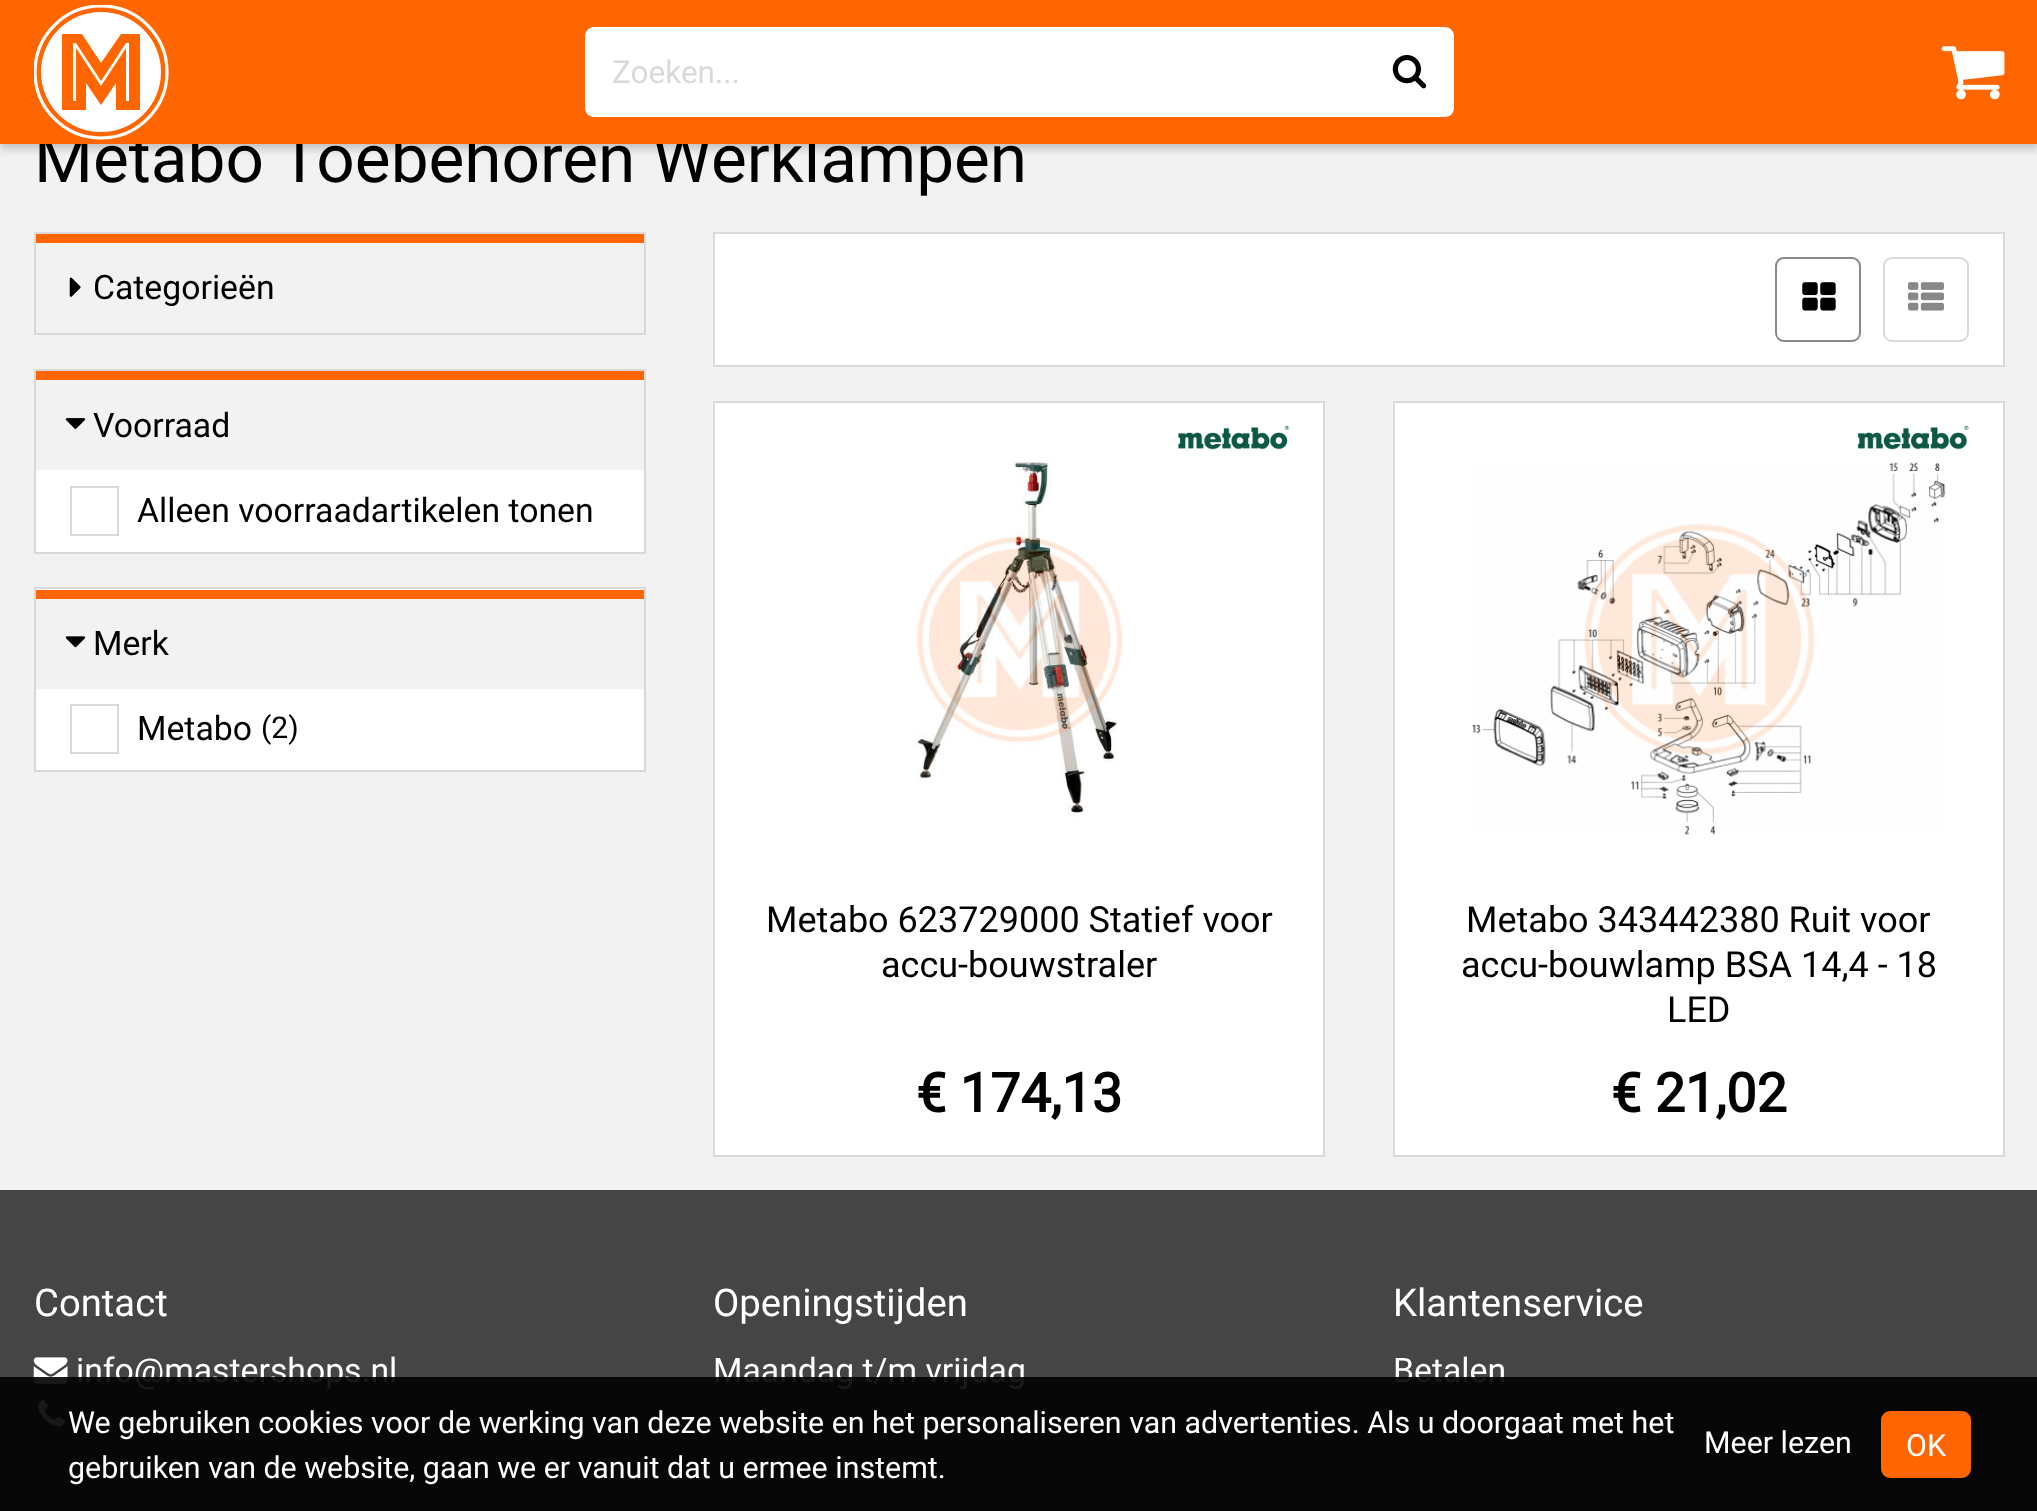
<svg xmlns="http://www.w3.org/2000/svg" width="2037" height="1511">
	<defs>
		<clipPath id="clip1"><rect x="34" y="5" width="135" height="135" /></clipPath>
	</defs>
	<rect width="100%" height="100%" fill="#F2F2F2" />
	<rect x="0" y="5" width="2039" height="144" fill="#000000" fill-opacity="0.2" filter="blur(4.5px)" />
	<text x="34" y="182" font-family="Roboto" font-size="67.5" fill="#000000">Metabo Toebehoren Werklampen</text>
	<rect x="0" y="0" width="2037" height="144" fill="#FF6600" />
	<g clip-path="url(#clip1)">
		<circle cx="101" cy="72" r="66" fill="none" stroke="#FFFFFF" stroke-width="3.2" />
	</g>
	<circle cx="101" cy="72" r="60" fill="#FFFFFF" />
	<path d="M62 34H82L101 63L121 34H140V110H116V83L101 105L86 83V110H62ZM76 101V48L101 86L126 48V101H129V43H126L101 81L76 43H73V101Z" fill="#FF6600" />
	<path d="M594 27H1366V117H594C589 117 585 113 585 108V36C585 31 589 27 594 27Z" fill="#FFFFFF" />
	<text x="612" y="83" font-family="Roboto" font-size="31.5" fill="#D9D9D9">Zoeken...</text>
	<path d="M1364 27H1445C1450 27 1454 31 1454 36V108C1454 113 1450 117 1445 117H1364Z" fill="#FFFFFF" />
	<image x="1392" y="55" width="35" height="34" href="assets/img1.png" />
	<image x="1941" y="46" width="64" height="54" href="assets/img2.png" />
	<rect x="35" y="233" width="610" height="101" fill="none" stroke="#D9D9D9" stroke-width="2" />
	<rect x="36" y="234" width="608" height="9" fill="#FF6600" />
	<image x="69" y="277" width="12" height="20" href="assets/img3.png" />
	<text x="93" y="299" font-family="Roboto" font-size="33.75" fill="#000000">Categorieën</text>
	<rect x="36" y="470" width="608" height="82" fill="#FFFFFF" />
	<rect x="35" y="370" width="610" height="183" fill="none" stroke="#D9D9D9" stroke-width="2" />
	<rect x="36" y="371" width="608" height="9" fill="#FF6600" />
	<image x="65" y="418" width="21" height="11" href="assets/img4.png" />
	<text x="93" y="437" font-family="Roboto" font-size="33.75" fill="#000000">Voorraad</text>
	<rect x="71" y="487" width="47" height="48" fill="none" stroke="#D9D9D9" stroke-width="2" />
	<text x="137" y="522" font-family="Roboto" font-size="33.75" fill="#000000">Alleen voorraadartikelen tonen</text>
	<rect x="35" y="588" width="610" height="183" fill="#FFFFFF" stroke="#D9D9D9" stroke-width="2" />
	<rect x="36" y="599" width="608" height="90" fill="#F2F2F2" />
	<rect x="36" y="590" width="608" height="9" fill="#FF6600" />
	<image x="65" y="636" width="21" height="12" href="assets/img5.png" />
	<text x="93" y="655" font-family="Roboto" font-size="33.75" fill="#000000">Merk</text>
	<rect x="71" y="705" width="47" height="48" fill="none" stroke="#D9D9D9" stroke-width="2" />
	<text x="137" y="740" font-family="Roboto" font-size="33.75" fill="#000000">Metabo</text>
	<text x="261" y="738" font-family="Roboto" font-size="30" fill="#000000">(2)</text>
	<rect x="714" y="233" width="1290" height="133" fill="#FFFFFF" stroke="#D9D9D9" stroke-width="2" />
	<rect x="1776" y="258" width="84" height="83" rx="8" fill="none" stroke="#888888" stroke-width="2" />
	<image x="1802" y="282" width="34" height="29" href="assets/img6.png" />
	<rect x="1884" y="258" width="84" height="83" rx="8" fill="none" stroke="#D9D9D9" stroke-width="2" />
	<image x="1908" y="282" width="36" height="29" href="assets/img7.png" />
	<rect x="714" y="402" width="610" height="754" fill="#FFFFFF" stroke="#D9D9D9" stroke-width="2" />
	<image x="1178" y="425" width="112" height="25" href="assets/img8.png" />
	<image x="915" y="459" width="209" height="359" href="assets/img9.png" />
	<g font-family="Roboto" font-size="36" fill="#000000">
		<text x="766" y="932">Metabo 623729000 Statief voor</text>
		<text x="881" y="977">accu-bouwstraler</text>
	</g>
	<text x="916" y="1112" font-family="Roboto" font-size="54" font-weight="700" fill="#000000">€ 174,13</text>
	<rect x="1394" y="402" width="610" height="754" fill="#FFFFFF" stroke="#D9D9D9" stroke-width="2" />
	<image x="1857" y="425" width="112" height="25" href="assets/img10.png" />
	<image x="1471" y="462" width="475" height="373" href="assets/img11.png" />
	<g font-family="Roboto" font-size="36" fill="#000000">
		<text x="1466" y="932">Metabo 343442380 Ruit voor</text>
		<text x="1461" y="977">accu-bouwlamp BSA 14,4 - 18</text>
		<text x="1667" y="1022">LED</text>
	</g>
	<text x="1611" y="1112" font-family="Roboto" font-size="54" font-weight="700" fill="#000000">€ 21,02</text>
	<rect x="0" y="1190" width="2037" height="321" fill="#454545" />
	<text x="34" y="1316" font-family="Roboto" font-size="38.25" fill="#FFFFFF">Contact</text>
	<image x="33" y="1357" width="35" height="27" href="assets/img12.png" />
	<text x="76" y="1382" font-family="Roboto" font-size="33.75" fill="#FFFFFF">info@mastershops.nl</text>
	<image x="38" y="1400" width="27" height="27" href="assets/img13.png" />
	<text x="713" y="1316" font-family="Roboto" font-size="38.25" fill="#FFFFFF">Openingstijden</text>
	<text x="713" y="1382" font-family="Roboto" font-size="33.75" fill="#FFFFFF">Maandag t/m vrijdag</text>
	<text x="1393" y="1316" font-family="Roboto" font-size="38.25" fill="#FFFFFF">Klantenservice</text>
	<text x="1393" y="1382" font-family="Roboto" font-size="33.75" fill="#FFFFFF">Betalen</text>
	<rect x="0" y="1377" width="2037" height="134" fill="#000000" fill-opacity="0.9" />
	<g font-family="Roboto" font-size="30.38" fill="#FFFFFF">
		<text x="68" y="1433">We gebruiken cookies voor de werking van deze website en het personaliseren van advertenties. Als u doorgaat met het</text>
		<text x="68" y="1478">gebruiken van de website, gaan we er vanuit dat u ermee instemt.</text>
		<text x="1704" y="1453">Meer lezen</text>
	</g>
	<rect x="1882" y="1412" width="88" height="65" rx="8" fill="#FF6600" stroke="#FF6600" stroke-width="2" />
	<text x="1906" y="1456" font-family="Roboto" font-size="30.38" fill="#FFFFFF">OK</text>
</svg>
